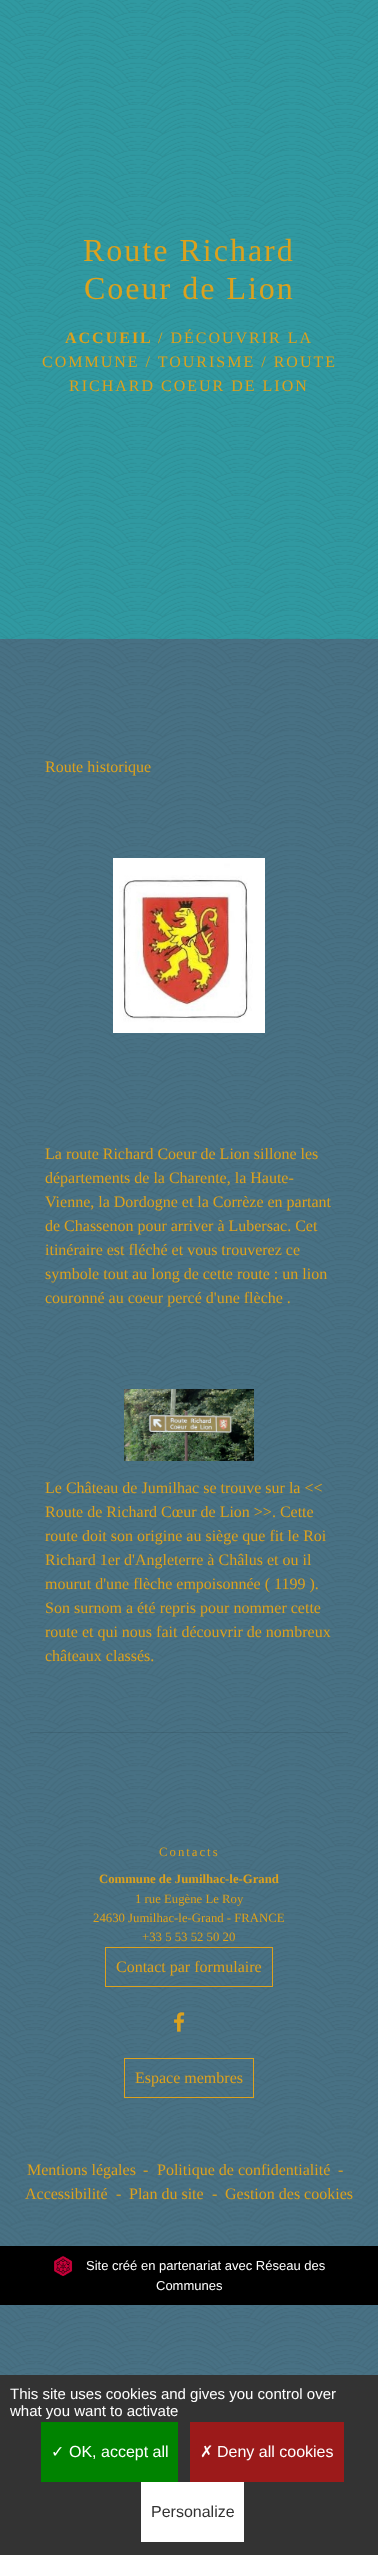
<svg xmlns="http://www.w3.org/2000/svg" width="378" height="2555">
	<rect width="100%" height="100%" fill="#487184" />
	<image x="0" y="639" width="378" height="1736" href="assets/img1.png" />
	<rect x="0" y="0" width="378" height="639" fill="#3099A1" />
	<image x="0" y="0" width="378" height="639" href="assets/img2.png" />
	<g font-family="Liberation Serif" font-size="32" letter-spacing="2" fill="#DCA11D">
		<text x="83" y="261">Route Richard</text>
		<text x="84" y="299">Coeur de Lion</text>
	</g>
	<text x="65" y="343" font-family="Liberation Serif" font-size="16" font-weight="700" letter-spacing="2" fill="#DCA11D">ACCUEIL</text>
	<g font-family="Liberation Serif" font-size="16" letter-spacing="2" fill="#DCA11D">
		<text x="158" y="343">/ DÉCOUVRIR LA</text>
		<text x="42" y="367">COMMUNE / TOURISME / ROUTE</text>
		<text x="69" y="391">RICHARD COEUR DE LION</text>
	</g>
	<text x="45" y="772" font-family="Liberation Serif" font-size="16" fill="#DCA11D">Route historique</text>
	<image x="113" y="858" width="152" height="175" href="assets/img3.png" />
	<g font-family="Liberation Serif" font-size="16" fill="#DCA11D">
		<text x="45" y="1159">La route Richard Coeur de Lion sillone les</text>
		<text x="45" y="1183">départements de la Charente, la Haute-</text>
		<text x="45" y="1207">Vienne, la Dordogne et la Corrèze en partant</text>
		<text x="45" y="1231">de Chassenon pour arriver à Lubersac. Cet</text>
		<text x="45" y="1255">itinéraire est fléché et vous trouverez ce</text>
		<text x="45" y="1279">symbole tout au long de cette route : un lion</text>
		<text x="45" y="1303">couronné au coeur percé d'une flèche .</text>
	</g>
	<image x="124" y="1389" width="130" height="72" href="assets/img4.png" />
	<g font-family="Liberation Serif" font-size="16" fill="#DCA11D">
		<text x="45" y="1493">Le Château de Jumilhac se trouve sur la &lt;&lt;</text>
		<text x="45" y="1517">Route de Richard Cœur de Lion &gt;&gt;. Cette</text>
		<text x="45" y="1541">route doit son origine au siège que fit le Roi</text>
		<text x="45" y="1565">Richard 1er d'Angleterre à Châlus et ou il</text>
		<text x="45" y="1589">mourut d'une flèche empoisonnée ( 1199 ).</text>
		<text x="45" y="1613">Son surnom a été repris pour nommer cette</text>
		<text x="45" y="1637">route et qui nous fait découvrir de nombreux</text>
		<text x="45" y="1661">châteaux classés.</text>
	</g>
	<rect x="30" y="1732" width="318" height="1" fill="#000000" fill-opacity="0.1" />
	<rect x="0" y="1819" width="378" height="427" fill="#487184" />
	<image x="0" y="1819" width="378" height="299" href="assets/img5.png" />
	<text x="159" y="1856" font-family="Liberation Serif" font-size="12.75" letter-spacing="2" fill="#DCA11D">Contacts</text>
	<text x="99" y="1883" font-family="Liberation Serif" font-size="12.75" font-weight="700" fill="#DCA11D">Commune de Jumilhac-le-Grand</text>
	<g font-family="Liberation Serif" font-size="12.75" fill="#DCA11D">
		<text x="135" y="1903">1 rue Eugène Le Roy</text>
		<text x="93" y="1922">24630 Jumilhac-le-Grand - FRANCE</text>
		<text x="142" y="1941">+33 5 53 52 50 20</text>
	</g>
	<rect x="105.5" y="1947.5" width="167" height="39" fill="none" stroke="#DCA11D" />
	<text x="116" y="1972" font-family="Liberation Serif" font-size="16" fill="#DCA11D">Contact par formulaire</text>
	<image x="174" y="2012" width="11" height="20" href="assets/img6.png" />
	<rect x="124.5" y="2058.5" width="129" height="39" fill="none" stroke="#DCA11D" />
	<text x="135" y="2083" font-family="Liberation Serif" font-size="16" fill="#DCA11D">Espace membres</text>
	<image x="0" y="2118" width="378" height="128" href="assets/img7.png" />
	<g font-family="Liberation Serif" font-size="16" fill="#DCA11D">
		<text x="27" y="2175">Mentions légales</text>
		<text x="143" y="2175">-</text>
		<text x="157" y="2175">Politique de confidentialité</text>
		<text x="338" y="2175">-</text>
		<text x="25" y="2199">Accessibilité</text>
		<text x="116" y="2199">-</text>
		<text x="129" y="2199">Plan du site</text>
		<text x="212" y="2199">-</text>
		<text x="225" y="2199">Gestion des cookies</text>
	</g>
	<rect x="0" y="2246" width="378" height="59" fill="#000000" />
	<image x="54" y="2256" width="19" height="20" href="assets/img8.png" />
	<g font-family="Liberation Sans" font-size="13" fill="#FFFFFF">
		<text x="86" y="2270">Site créé en partenariat avec Réseau des</text>
		<text x="156" y="2290">Communes</text>
	</g>
	<rect x="0" y="2375" width="378" height="180" fill="#333333" />
	<g font-family="Liberation Sans" font-size="15" fill="#FFFFFF">
		<text x="10" y="2399">This site uses cookies and gives you control over</text>
		<text x="10" y="2416">what you want to activate</text>
	</g>
	<rect x="41" y="2422" width="137" height="60" fill="#008300" />
	<text x="51" y="2457" font-family="DejaVu Sans" font-size="16" fill="#FFFFFF">✓</text>
	<text x="69" y="2457" font-family="Liberation Sans" font-size="16" fill="#FFFFFF">OK, accept all</text>
	<rect x="190" y="2422" width="154" height="60" fill="#9C1A1A" />
	<text x="200" y="2457" font-family="DejaVu Sans" font-size="16" fill="#FFFFFF">✗</text>
	<text x="217" y="2457" font-family="Liberation Sans" font-size="16" fill="#FFFFFF">Deny all cookies</text>
	<rect x="141" y="2482" width="103" height="60" fill="#FFFFFF" />
	<text x="151" y="2517" font-family="Liberation Sans" font-size="16" fill="#333333">Personalize</text>
</svg>
